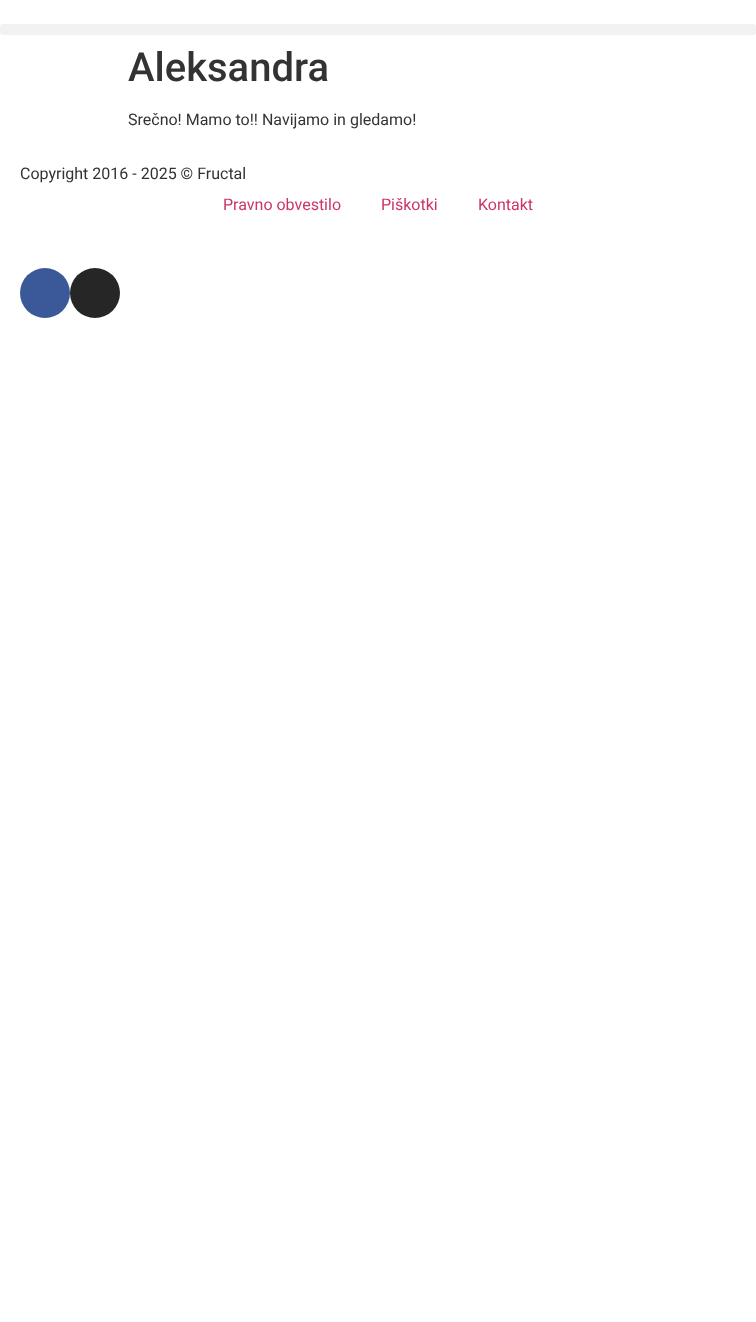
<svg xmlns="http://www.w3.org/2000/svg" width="756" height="1322">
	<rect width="100%" height="100%" fill="#FFFFFF" />
	<rect x="0" y="24" width="756" height="11" rx="3" fill="#F2F2F2" />
	<text x="128" y="81" font-family="Roboto" font-size="40" font-weight="500" fill="#333333">Aleksandra</text>
	<g font-family="Roboto" font-size="16" fill="#333333">
		<text x="128" y="125">Srečno! Mamo to!! Navijamo in gledamo!</text>
		<text x="20" y="179">Copyright 2016 - 2025 © Fructal</text>
	</g>
	<g font-family="Roboto" font-size="16" fill="#CC3366">
		<text x="223" y="210">Pravno obvestilo</text>
		<text x="381" y="210">Piškotki</text>
		<text x="478" y="210">Kontakt</text>
	</g>
	<circle cx="45" cy="293" r="25" fill="#3B5998" />
	<circle cx="95" cy="293" r="25" fill="#262626" />
</svg>
